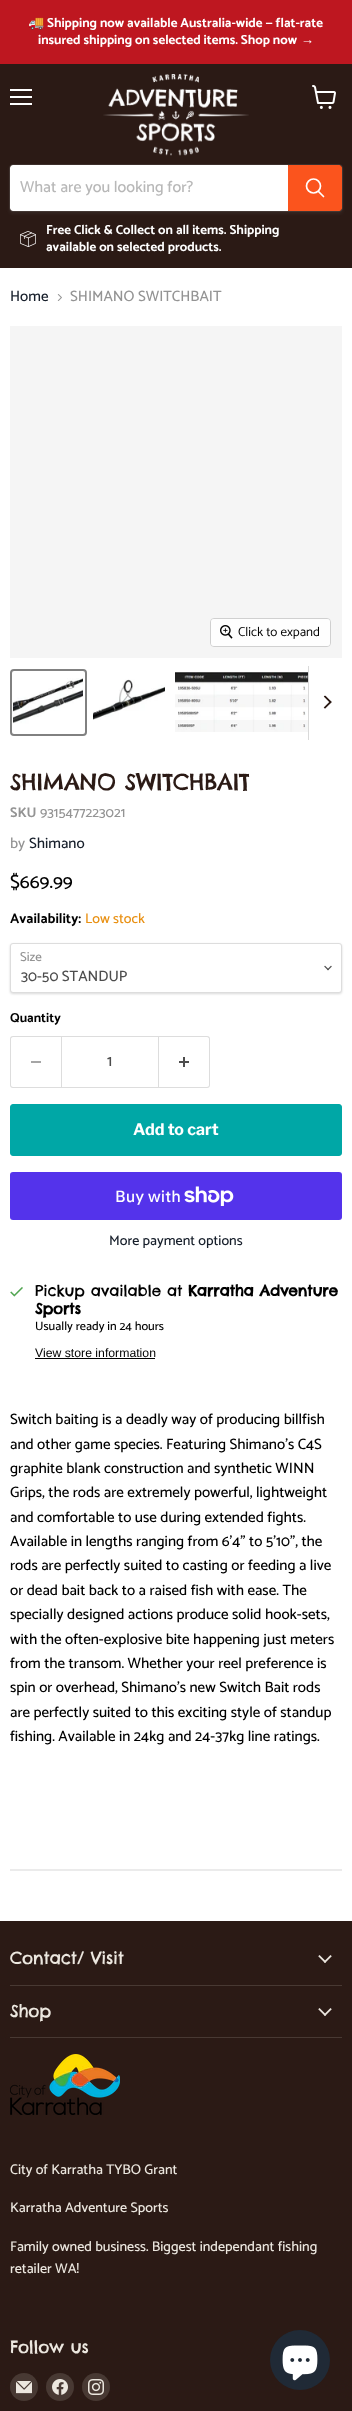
<svg xmlns="http://www.w3.org/2000/svg" width="352" height="2411">
	<defs>
		<clipPath id="clip1"><path d="M323.5 709.5V695.5H331.5V709.5Z" /></clipPath>
	</defs>
	<rect width="100%" height="100%" fill="#FFFFFF" />
	<rect x="0" y="0" width="352" height="64" fill="#BE1720" />
	<text x="28" y="27" font-family="Noto Color Emoji" font-size="13.1" font-weight="700" fill="#FFFFFF">🚚</text>
	<g font-family="Catamaran" font-size="13.1" font-weight="700" fill="#FFFFFF">
		<text x="47" y="27">Shipping now available Australia-wide — flat-rate</text>
		<text x="38" y="44">insured shipping on selected items. Shop now</text>
	</g>
	<text x="301" y="44" font-family="Liberation Sans" font-size="13.1" font-weight="700" fill="#FFFFFF">→</text>
	<rect x="0" y="64" width="352" height="204" fill="#2B1A15" />
	<rect x="10" y="89" width="22" height="2" fill="#FFFFFF" />
	<rect x="10" y="96" width="22" height="2" fill="#FFFFFF" />
	<rect x="10" y="103" width="22" height="2" fill="#FFFFFF" />
	<image x="312" y="85" width="24" height="24" href="assets/img1.png" />
	<image x="103" y="74" width="146" height="82" href="assets/img2.png" />
	<rect x="9" y="166" width="334" height="48" rx="4" fill="#808080" fill-opacity="0.11" filter="blur(1.5px)" />
	<rect x="9.5" y="164.5" width="333" height="47" rx="3.5" fill="none" stroke="#808080" stroke-opacity="0.2" />
	<path d="M13 165H288V211H13C11.5 211 10 209.5 10 208V168C10 166.5 11.5 165 13 165Z" fill="#FFFFFF" />
	<text x="20" y="192" font-family="Catamaran" font-size="16" font-weight="500" fill="#B8B8B8">What are you looking for?</text>
	<path d="M288.5 165.5H339C340.5 165.5 341.5 166.5 341.5 168V208C341.5 209.5 340.5 210.5 339 210.5H288.5Z" fill="#FB541D" stroke="#FB541D" />
	<path d="M323.5 196.5L318.5 191.5" fill="none" stroke="#FFFFFF" stroke-width="1.7" stroke-linecap="round" />
	<circle cx="313.5" cy="186" r="7" fill="none" stroke="#FFFFFF" stroke-width="1.7" />
	<image x="20" y="231" width="16" height="16" href="assets/img3.png" />
	<g font-family="Catamaran" font-size="13.1" font-weight="700" fill="#FFFFFF">
		<text x="46" y="234">Free Click &amp; Collect on all items. Shipping</text>
		<text x="46" y="251">available on selected products.</text>
	</g>
	<text x="10" y="301" font-family="Catamaran" font-size="15" font-weight="500" fill="#171F2B">Home</text>
	<image x="57" y="294" width="5" height="7" href="assets/img4.png" />
	<text x="70" y="301" font-family="Catamaran" font-size="15" font-weight="500" fill="#949494">SHIMANO SWITCHBAIT</text>
	<rect x="10" y="326" width="332" height="332" fill="#F5F5F5" />
	<rect x="210.5" y="618.5" width="120" height="28" rx="3.5" fill="none" stroke="#D0D0D0" />
	<rect x="211" y="619" width="119" height="27" rx="3" fill="#FFFFFF" fill-opacity="0.9" />
	<image x="220" y="625" width="13" height="14" href="assets/img5.png" />
	<text x="238" y="636" font-family="Catamaran" font-size="13.1" fill="#000000">Click to expand</text>
	<rect x="11" y="670" width="75" height="65" rx="3" fill="none" stroke="#818181" stroke-width="2" />
	<image x="13" y="678" width="70" height="46" href="assets/img6.png" />
	<image x="93" y="679" width="72" height="41" href="assets/img7.png" />
	<image x="175" y="672" width="133" height="60" href="assets/img8.png" />
	<rect x="308" y="666" width="1" height="74" fill="#D9D9D9" />
	<g clip-path="url(#clip1)">
		<path d="M330.5 702L325 696.5" fill="none" stroke="#2B1A15" stroke-width="1.8" stroke-linecap="square" />
	</g>
	<path d="M330.5 702L325 707.5" fill="none" stroke="#2B1A15" stroke-width="1.8" stroke-linecap="square" />
	<text x="10" y="790" font-family="Chelsea Market" font-size="22.5" letter-spacing="-0.25" fill="#2B1A15">SHIMANO SWITCHBAIT</text>
	<text x="10" y="817" font-family="Catamaran" font-size="14" font-weight="700" fill="#949494">SKU</text>
	<text x="40" y="817" font-family="Catamaran" font-size="14" font-weight="500" fill="#949494">9315477223021</text>
	<text x="10" y="848" font-family="Catamaran" font-size="15" font-weight="500" fill="#949494">by</text>
	<text x="29" y="848" font-family="Catamaran" font-size="15" font-weight="500" fill="#171F2B">Shimano</text>
	<text x="10" y="888" font-family="Catamaran" font-size="19" font-weight="500" fill="#000000">$669.99</text>
	<text x="10" y="923" font-family="Catamaran" font-size="14.1" font-weight="700" fill="#000000">Availability:</text>
	<text x="85" y="923" font-family="Catamaran" font-size="14.1" font-weight="500" fill="#E99114">Low stock</text>
	<rect x="10" y="944" width="332" height="50" rx="3" fill="#000000" fill-opacity="0.15" filter="blur(1px)" />
	<rect x="10.5" y="943.5" width="331" height="49" rx="2.5" fill="#FFFFFF" stroke="#DDDDDD" />
	<text x="20" y="961" font-family="Catamaran" font-size="13" font-weight="500" fill="#949494">Size</text>
	<image x="324" y="965" width="8" height="6" href="assets/img9.png" />
	<text x="21" y="981" font-family="Catamaran" font-size="15" font-weight="500" fill="#4D4D4D">30-50 STANDUP</text>
	<text x="10" y="1022" font-family="Catamaran" font-size="13.1" font-weight="700" fill="#000000">Quantity</text>
	<path d="M13 1036H61V1088H13C11 1088 10 1087 10 1085V1039C10 1037 11 1036 13 1036ZM13 1037H61V1087H13C12 1087 11 1086 11 1085V1039C11 1038 12 1037 13 1037Z" fill="#DDDDDD" fill-rule="evenodd" />
	<rect x="31" y="1061" width="10" height="2" fill="#A6A6A6" />
	<rect x="61.5" y="1036.5" width="97" height="51" fill="none" stroke="#DDDDDD" />
	<text x="107" y="1066" font-family="Catamaran" font-size="16" font-weight="500" fill="#4D4D4D">1</text>
	<path d="M159 1036H207C209 1036 210 1037 210 1039V1085C210 1087 209 1088 207 1088H159ZM159 1037H207C208 1037 209 1038 209 1039V1085C209 1086 208 1087 207 1087H159Z" fill="#DDDDDD" fill-rule="evenodd" />
	<image x="179" y="1057" width="10" height="10" href="assets/img10.png" />
	<rect x="10.5" y="1104.5" width="331" height="51" rx="2.5" fill="#00A7A6" stroke="#00A7A6" />
	<text x="133" y="1135" font-family="Libre Franklin" font-size="16" font-weight="700" fill="#FFFFFF">Add to cart</text>
	<rect x="10" y="1172" width="332" height="48" rx="3" fill="#5433EB" />
	<text x="115" y="1202" font-family="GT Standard" font-size="16" font-weight="500" fill="#FFFFFF">Buy with</text>
	<image x="184" y="1186" width="50" height="20" href="assets/img11.png" />
	<text x="109" y="1245" font-family="Catamaran" font-size="14.1" font-weight="500" fill="#171F2B">More payment options</text>
	<image x="10" y="1287" width="13" height="10" href="assets/img12.png" />
	<text x="35" y="1296" font-family="Chelsea Market" font-size="15" letter-spacing="-0.1" fill="#000000">Pickup available at</text>
	<g font-family="Chelsea Market" font-size="15" font-weight="700" letter-spacing="-0.1" fill="#000000">
		<text x="188" y="1296">Karratha Adventure</text>
		<text x="35" y="1314">Sports</text>
	</g>
	<text x="35" y="1330" font-family="Catamaran" font-size="12.25" font-weight="500" fill="#000000">Usually ready in 24 hours</text>
	<text x="35" y="1357" font-family="Liberation Sans" font-size="12.25" fill="#000000">View store information</text>
	<rect x="35" y="1358" width="120" height="1" fill="#000000" />
	<g font-family="Catamaran" font-size="15" font-weight="500" fill="#000000">
		<text x="10" y="1424">Switch baiting is a deadly way of producing billfish</text>
		<text x="10" y="1449">and other game species. Featuring Shimano's C4S</text>
		<text x="10" y="1473">graphite blank construction and synthetic WINN</text>
		<text x="10" y="1497">Grips, the rods are extremely powerful, lightweight</text>
		<text x="10" y="1522">and comfortable to use during extended fights.</text>
		<text x="10" y="1546">Available in lengths ranging from 6'4" to 5'10", the</text>
		<text x="10" y="1570">rods are perfectly suited to casting or feeding a live</text>
		<text x="10" y="1595">or dead bait back to a raised fish with ease. The</text>
		<text x="10" y="1619">specially designed actions produce solid hook-sets,</text>
		<text x="10" y="1644">with the often-explosive bite happening just meters</text>
		<text x="10" y="1668">from the transom. Whether your reel preference is</text>
		<text x="10" y="1692">spin or overhead, Shimano’s new Switch Bait rods</text>
		<text x="10" y="1717">are perfectly suited to this exciting style of standup</text>
		<text x="10" y="1741">fishing. Available in 24kg and 24-37kg line ratings.</text>
	</g>
	<rect x="10" y="1869" width="332" height="2" fill="#EBEBEB" />
	<rect x="0" y="1921" width="352" height="490" fill="#2B1A15" />
	<rect x="10" y="1985" width="332" height="1" fill="#483933" />
	<text x="10" y="1964" font-family="Chelsea Market" font-size="17" letter-spacing="-0.2" fill="#ECE7DF">Contact/ Visit</text>
	<image x="318" y="1955" width="14" height="8" href="assets/img13.png" />
	<rect x="10" y="2037" width="332" height="1" fill="#483933" />
	<text x="10" y="2017" font-family="Chelsea Market" font-size="17" letter-spacing="-0.2" fill="#ECE7DF">Shop</text>
	<image x="318" y="2008" width="14" height="8" href="assets/img13.png" />
	<image x="10" y="2054" width="110" height="61" href="assets/img14.png" />
	<g font-family="Catamaran" font-size="14.1" font-weight="500" fill="#ECE7DF">
		<text x="10" y="2174">City of Karratha TYBO Grant</text>
		<text x="10" y="2212">Karratha Adventure Sports</text>
		<text x="10" y="2251">Family owned business. Biggest independant fishing</text>
		<text x="10" y="2273">retailer WA!</text>
	</g>
	<text x="10" y="2353" font-family="Chelsea Market" font-size="17" letter-spacing="-0.2" fill="#ECE7DF">Follow us</text>
	<circle cx="24" cy="2387" r="14" fill="#483933" />
	<image x="16" y="2381" width="16" height="13" href="assets/img15.png" />
	<circle cx="60" cy="2387" r="14" fill="#483933" />
	<image x="52" y="2379" width="16" height="16" href="assets/img16.png" />
	<circle cx="96" cy="2387" r="14" fill="#483933" />
	<image x="88" y="2379" width="16" height="16" href="assets/img17.png" />
	<circle cx="300" cy="2360" r="30" fill="#202A36" />
	<image x="282" y="2345" width="36" height="36" href="assets/img18.png" />
</svg>
